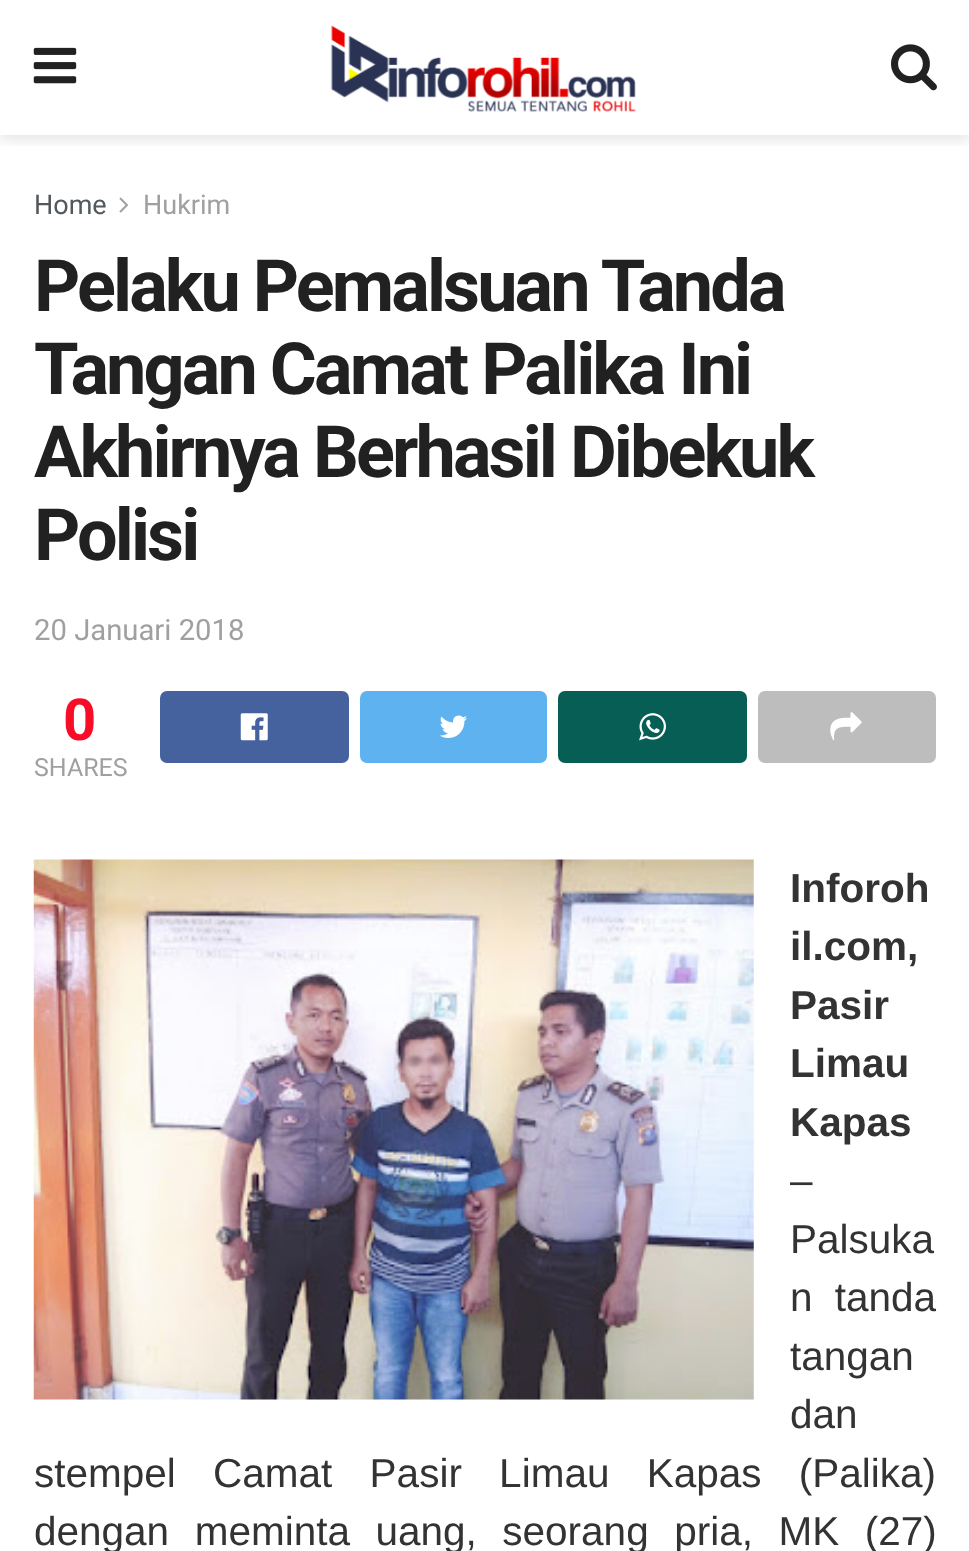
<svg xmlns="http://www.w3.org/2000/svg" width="969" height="1551">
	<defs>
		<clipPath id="clip1"><rect x="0" y="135" width="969" height="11" /></clipPath>
	</defs>
	<rect width="100%" height="100%" fill="#FFFFFF" />
	<g clip-path="url(#clip1)">
		<rect x="0" y="5" width="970" height="135" fill="#000000" fill-opacity="0.1" filter="blur(7px)" />
	</g>
	<image x="33" y="47" width="44" height="37" href="assets/img1.png" />
	<image x="330" y="25" width="306" height="87" href="assets/img2.png" />
	<image x="891" y="44" width="46" height="47" href="assets/img3.png" />
	<text x="34" y="214" font-family="Roboto" font-size="27" fill="#53585C">Home</text>
	<image x="119" y="197" width="10" height="16" href="assets/img4.png" />
	<text x="143" y="214" font-family="Roboto" font-size="27" fill="#A0A0A0">Hukrim</text>
	<g font-family="Roboto" font-size="72" font-weight="700" letter-spacing="-2.9" fill="#212121">
		<text x="34" y="311">Pelaku Pemalsuan Tanda</text>
		<text x="34" y="394">Tangan Camat Palika Ini</text>
		<text x="34" y="477">Akhirnya Berhasil Dibekuk</text>
		<text x="34" y="560">Polisi</text>
	</g>
	<text x="34" y="640" font-family="Roboto" font-size="29.25" fill="#A0A0A0">20 Januari 2018</text>
	<text x="63" y="740" font-family="Roboto" font-size="58" font-weight="700" fill="#F70D28">0</text>
	<text x="34" y="776" font-family="Roboto" font-size="25" fill="#A0A0A0">SHARES</text>
	<rect x="160" y="691" width="189" height="72" rx="7" fill="#45629F" />
	<image x="240" y="713" width="28" height="28" href="assets/img5.png" />
	<rect x="360" y="691" width="187" height="72" rx="7" fill="#5EB2EF" />
	<image x="439" y="715" width="28" height="23" href="assets/img6.png" />
	<rect x="558" y="691" width="189" height="72" rx="7" fill="#075E54" />
	<image x="639" y="713" width="27" height="28" href="assets/img7.png" />
	<rect x="758" y="691" width="178" height="72" rx="7" fill="#BDBDBD" />
	<image x="830" y="712" width="32" height="29" href="assets/img8.png" />
	<image x="33" y="859" width="721" height="541" href="assets/img9.png" />
	<g font-family="Liberation Sans" font-size="40.5" font-weight="700" fill="#333333">
		<text x="790" y="902">Inforoh</text>
		<text x="790" y="960">il.com,</text>
		<text x="790" y="1019">Pasir</text>
		<text x="790" y="1077">Limau</text>
		<text x="790" y="1136">Kapas</text>
	</g>
	<g font-family="Liberation Sans" font-size="40.5" fill="#333333">
		<text x="790" y="1194">–</text>
		<text x="790" y="1253">Palsuka</text>
		<text x="790" y="1311" word-spacing="11">n tanda</text>
		<text x="790" y="1370">tangan</text>
		<text x="790" y="1428">dan</text>
		<text x="34" y="1487" word-spacing="26">stempel Camat Pasir Limau Kapas (Palika)</text>
		<text x="34" y="1545" word-spacing="14.25">dengan meminta uang, seorang pria, MK (27)</text>
	</g>
</svg>
